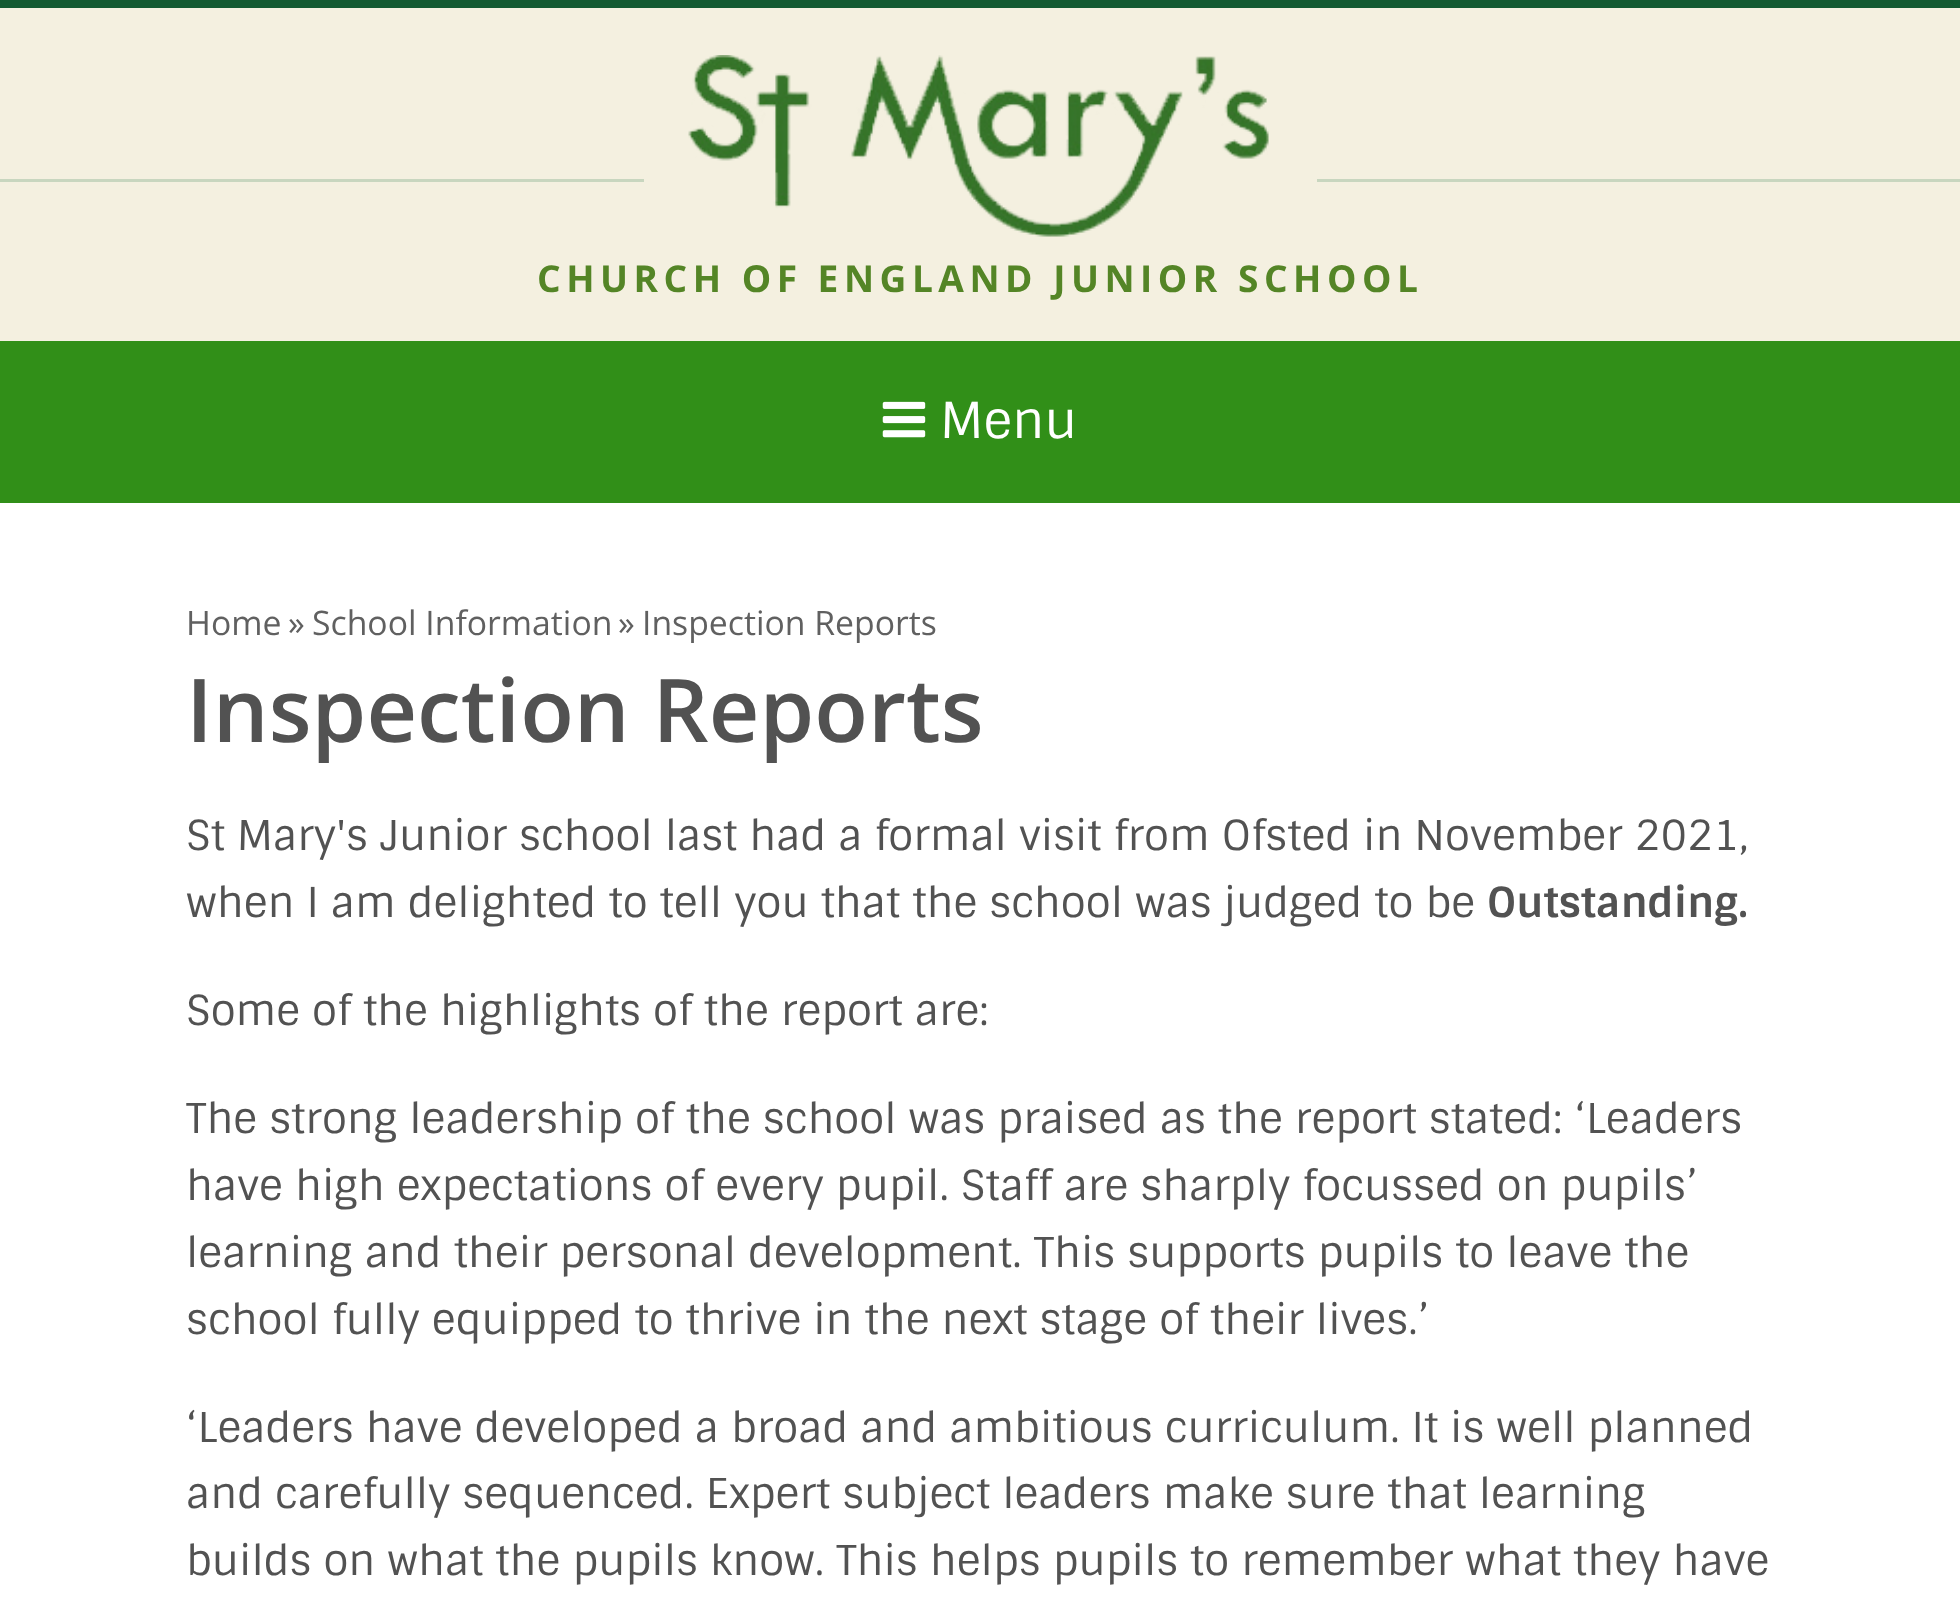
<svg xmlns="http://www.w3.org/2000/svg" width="1960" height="1603">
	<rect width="100%" height="100%" fill="#FFFFFF" />
	<rect x="0" y="8" width="1960" height="333" fill="#F4F0E0" />
	<rect x="0" y="0" width="1960" height="8" fill="#135A32" />
	<rect x="0" y="179" width="1960" height="3" fill="#C8D6BF" />
	<rect x="644" y="179" width="673" height="3" fill="#F4F0E0" />
	<image x="688" y="55" width="581" height="182" href="assets/img1.png" />
	<text x="537" y="292" font-family="Open Sans" font-size="37.1" font-weight="700" letter-spacing="5.5" fill="#548526">CHURCH OF ENGLAND JUNIOR SCHOOL</text>
	<rect x="0" y="341" width="1960" height="162" fill="#318F18" />
	<image x="882" y="401" width="44" height="37" href="assets/img2.png" />
	<text x="940" y="438" font-family="Sintony" font-size="49.5" fill="#FFFFFF">Menu</text>
	<g font-family="Open Sans" font-size="33.75" fill="#606060">
		<text x="186" y="635">Home</text>
		<text x="288" y="635">»</text>
		<text x="312" y="635">School Information</text>
		<text x="618" y="635">»</text>
		<text x="642" y="635">Inspection Reports</text>
	</g>
	<text x="186" y="742" font-family="Open Sans" font-size="88" font-weight="600" fill="#525252">Inspection Reports</text>
	<g font-family="Sintony" font-size="41.25" fill="#525252">
		<text x="186" y="850">St Mary's Junior school last had a formal visit from Ofsted in November 2021,</text>
		<text x="186" y="917">when I am delighted to tell you that the school was judged to be</text>
	</g>
	<text x="1487" y="917" font-family="Sintony" font-size="41.25" font-weight="700" fill="#525252">Outstanding.</text>
	<g font-family="Sintony" font-size="41.25" fill="#525252">
		<text x="186" y="1025">Some of the highlights of the report are:</text>
		<text x="186" y="1133">The strong leadership of the school was praised as the report stated: ‘Leaders</text>
		<text x="186" y="1200">have high expectations of every pupil. Staff are sharply focussed on pupils’</text>
		<text x="186" y="1267">learning and their personal development. This supports pupils to leave the</text>
		<text x="186" y="1334">school fully equipped to thrive in the next stage of their lives.’</text>
		<text x="186" y="1442">‘Leaders have developed a broad and ambitious curriculum. It is well planned</text>
		<text x="186" y="1508">and carefully sequenced. Expert subject leaders make sure that learning</text>
		<text x="186" y="1575">builds on what the pupils know. This helps pupils to remember what they have</text>
	</g>
</svg>
